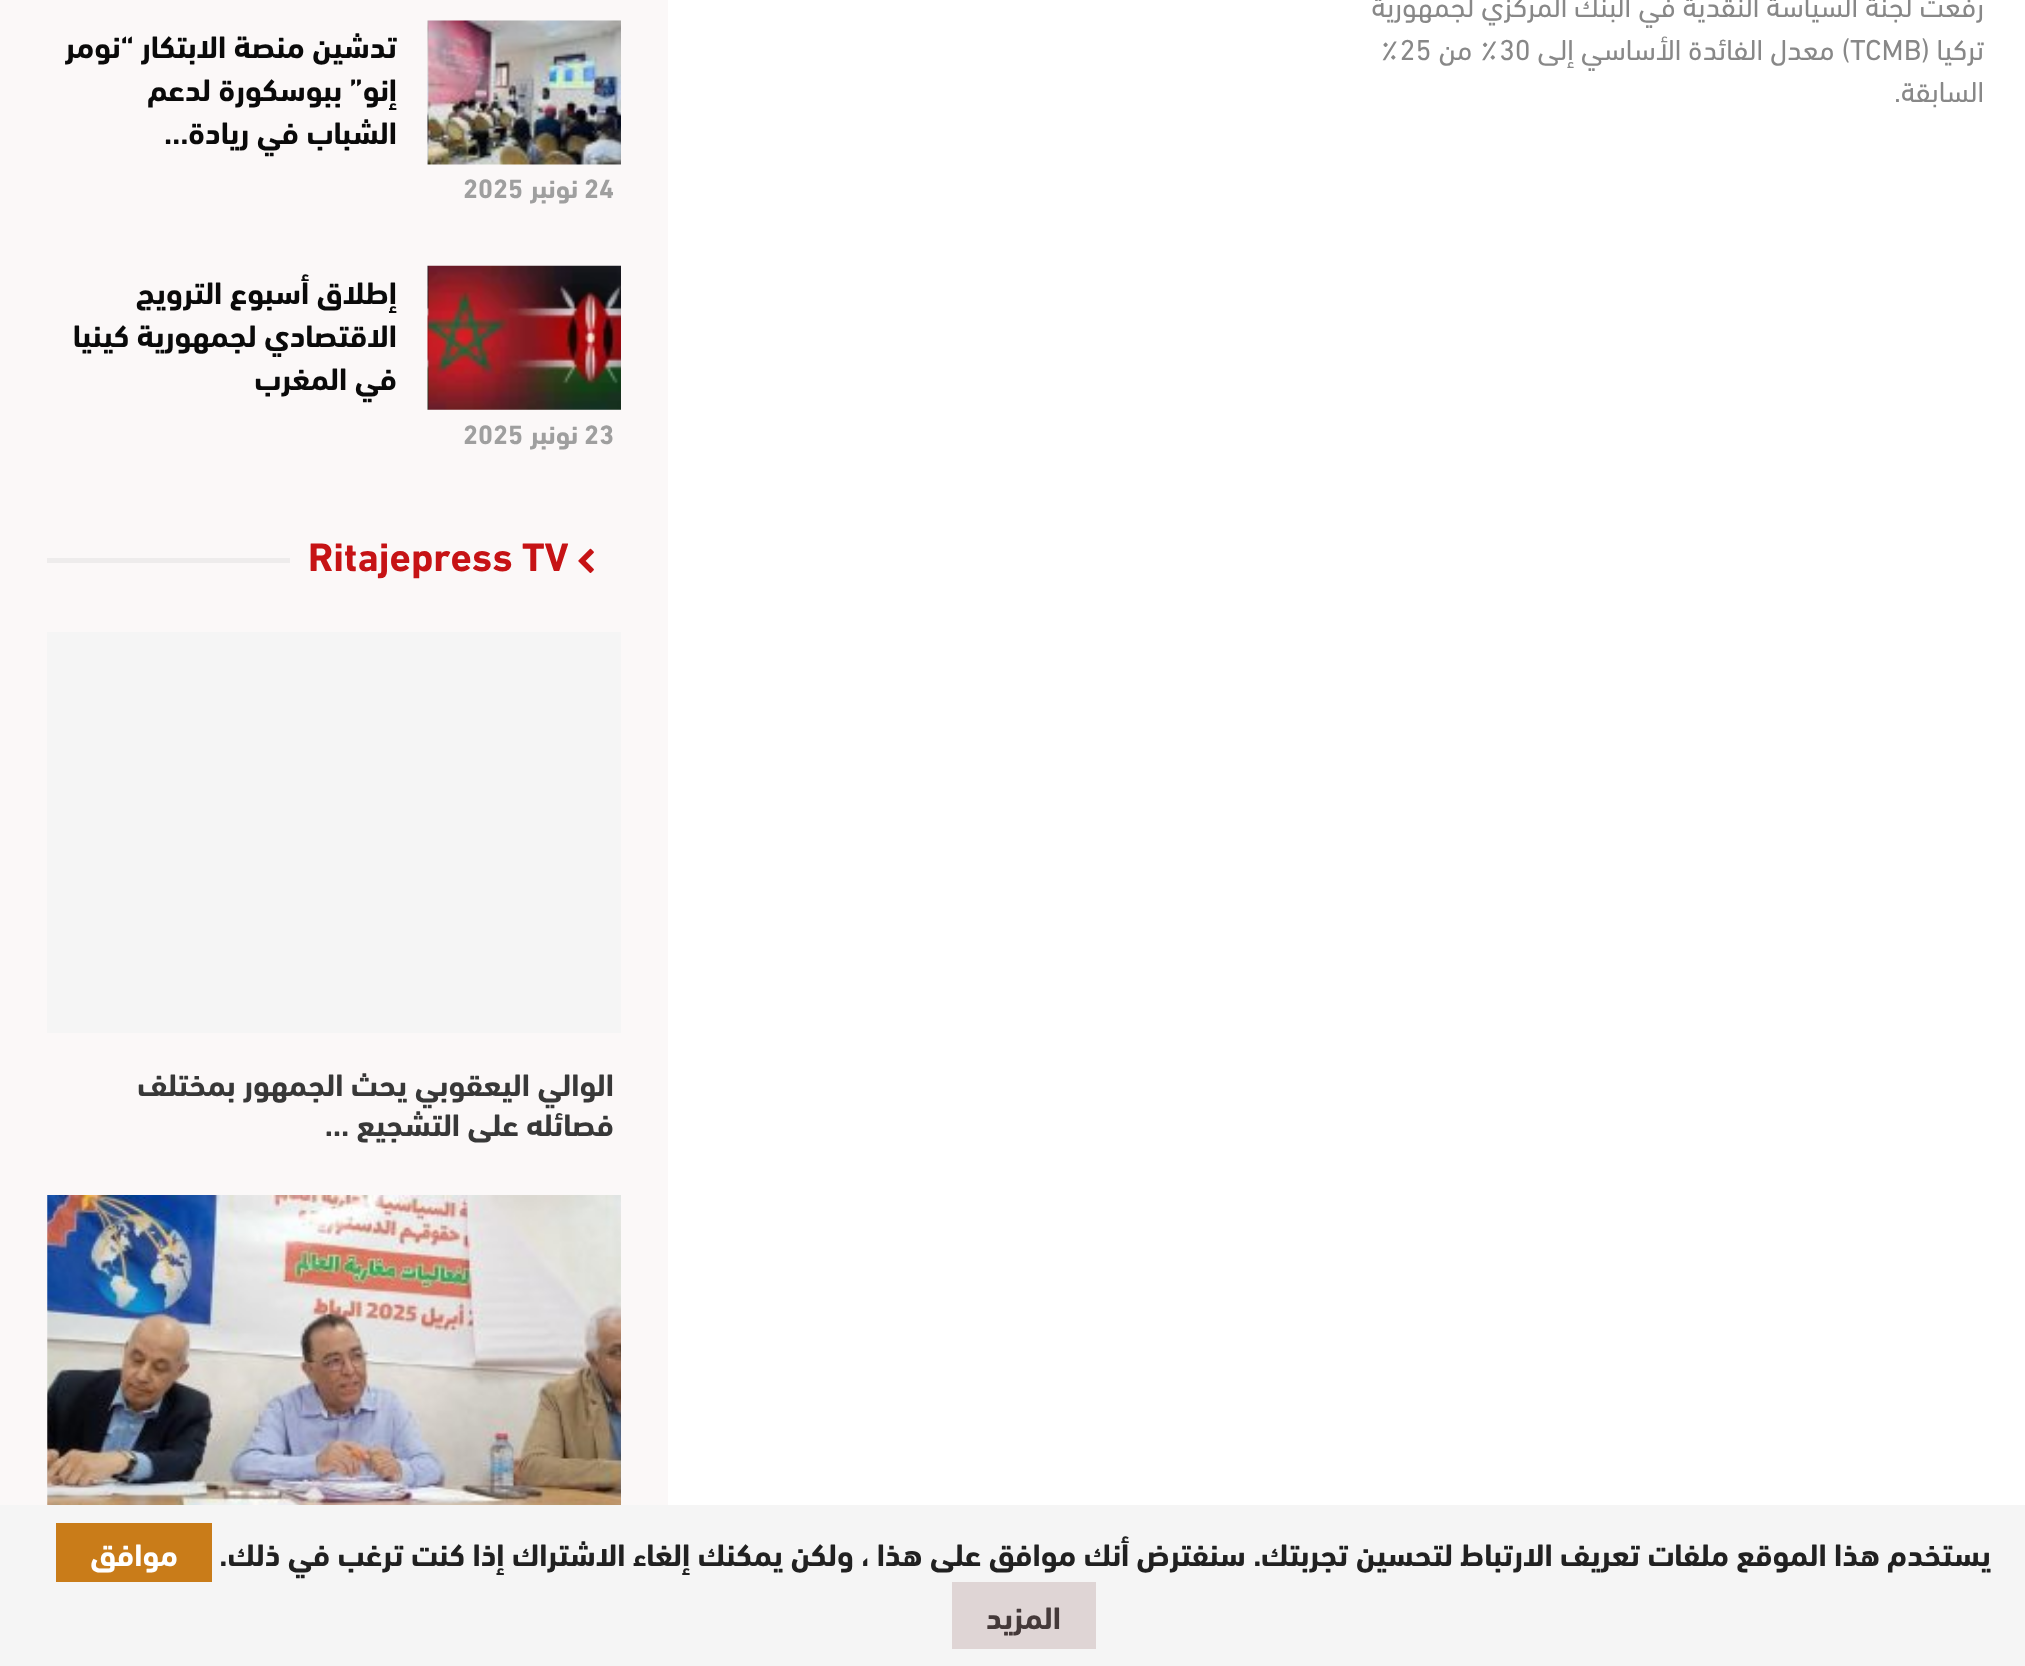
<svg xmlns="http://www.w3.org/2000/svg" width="2025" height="1666">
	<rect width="100%" height="100%" fill="#FFFFFF" />
	<g font-family="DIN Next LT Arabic" font-size="29.25" direction="rtl" fill="#888888">
		<text x="1984" y="17">رفعت لجنة السياسة النقدية في البنك المركزي لجمهورية</text>
		<text x="1984" y="60">تركيا (</text>
	</g>
	<text x="1850" y="60" font-family="DIN Next LT Arabic" font-size="29.25" fill="#888888">TCMB</text>
	<text x="1850" y="60" font-family="DIN Next LT Arabic" font-size="29.25" direction="rtl" fill="#888888">) معدل الفائدة الأساسي إلى</text>
	<text x="1499" y="60" font-family="DIN Next LT Arabic" font-size="29.25" fill="#888888">30</text>
	<text x="1499" y="60" font-family="DIN Next LT Arabic" font-size="29.25" direction="rtl" fill="#888888">٪ من</text>
	<text x="1380" y="60" font-family="DIN Next LT Arabic" font-size="29.25" fill="#888888">٪25</text>
	<text x="1984" y="102" font-family="DIN Next LT Arabic" font-size="29.25" direction="rtl" fill="#888888">السابقة.</text>
	<rect x="0" y="0" width="668" height="1505" fill="#FBF8F8" />
	<rect x="428" y="20" width="193" height="1" fill="#F5F5F5" />
	<image x="427" y="20" width="194" height="145" href="assets/img1.png" />
	<g font-family="DIN Next LT Arabic" font-size="31.5" font-weight="700" direction="rtl" fill="#0A0A0A">
		<text x="397" y="58">تدشين منصة الابتكار “نومر</text>
		<text x="397" y="101">إنو” ببوسكورة لدعم</text>
		<text x="397" y="144">الشباب في ريادة…</text>
	</g>
	<text x="584" y="198" font-family="DIN Next LT Arabic" font-size="27" font-weight="700" fill="#9F9F9F">24</text>
	<text x="578" y="198" font-family="DIN Next LT Arabic" font-size="27" font-weight="700" direction="rtl" fill="#9F9F9F">نونبر</text>
	<text x="463" y="198" font-family="DIN Next LT Arabic" font-size="27" font-weight="700" fill="#9F9F9F">2025</text>
	<image x="427" y="265" width="194" height="145" href="assets/img2.png" />
	<g font-family="DIN Next LT Arabic" font-size="31.5" font-weight="700" direction="rtl" fill="#0A0A0A">
		<text x="397" y="304">إطلاق أسبوع الترويج</text>
		<text x="397" y="347">الاقتصادي لجمهورية كينيا</text>
		<text x="397" y="390">في المغرب</text>
	</g>
	<text x="584" y="444" font-family="DIN Next LT Arabic" font-size="27" font-weight="700" fill="#9F9F9F">23</text>
	<text x="578" y="444" font-family="DIN Next LT Arabic" font-size="27" font-weight="700" direction="rtl" fill="#9F9F9F">نونبر</text>
	<text x="463" y="444" font-family="DIN Next LT Arabic" font-size="27" font-weight="700" fill="#9F9F9F">2025</text>
	<image x="578" y="548" width="16" height="25" href="assets/img3.png" />
	<text x="308" y="571" font-family="DIN Next LT Arabic" font-size="40.5" font-weight="700" fill="#C61315">Ritajepress TV</text>
	<rect x="47" y="558" width="243" height="5" fill="#EEECEC" />
	<rect x="47" y="632" width="574" height="401" fill="#F5F5F5" />
	<g font-family="DIN Next LT Arabic" font-size="31.5" font-weight="700" direction="rtl" fill="#383838">
		<text x="614" y="1096">الوالي اليعقوبي يحث الجمهور بمختلف</text>
		<text x="614" y="1136">فصائله على التشجيع …</text>
	</g>
	<image x="47" y="1195" width="574" height="310" href="assets/img4.png" />
	<rect x="0" y="1505" width="2025" height="161" fill="#F5F5F5" />
	<text x="1991" y="1566" font-family="DIN Next LT Arabic" font-size="31.5" font-weight="700" direction="rtl" fill="#212121">يستخدم هذا الموقع ملفات تعريف الارتباط لتحسين تجربتك. سنفترض أنك موافق على هذا ، ولكن يمكنك إلغاء الاشتراك إذا كنت ترغب في ذلك.</text>
	<rect x="56" y="1523" width="156" height="59" fill="#C97C19" />
	<text x="178" y="1566" font-family="DIN Next LT Arabic" font-size="31.5" font-weight="700" direction="rtl" fill="#FFFFFF">موافق</text>
	<rect x="952" y="1582" width="144" height="67" fill="#DFD5D5" />
	<text x="1061" y="1629" font-family="DIN Next LT Arabic" font-size="31.5" font-weight="700" direction="rtl" fill="#443939">المزيد</text>
</svg>
